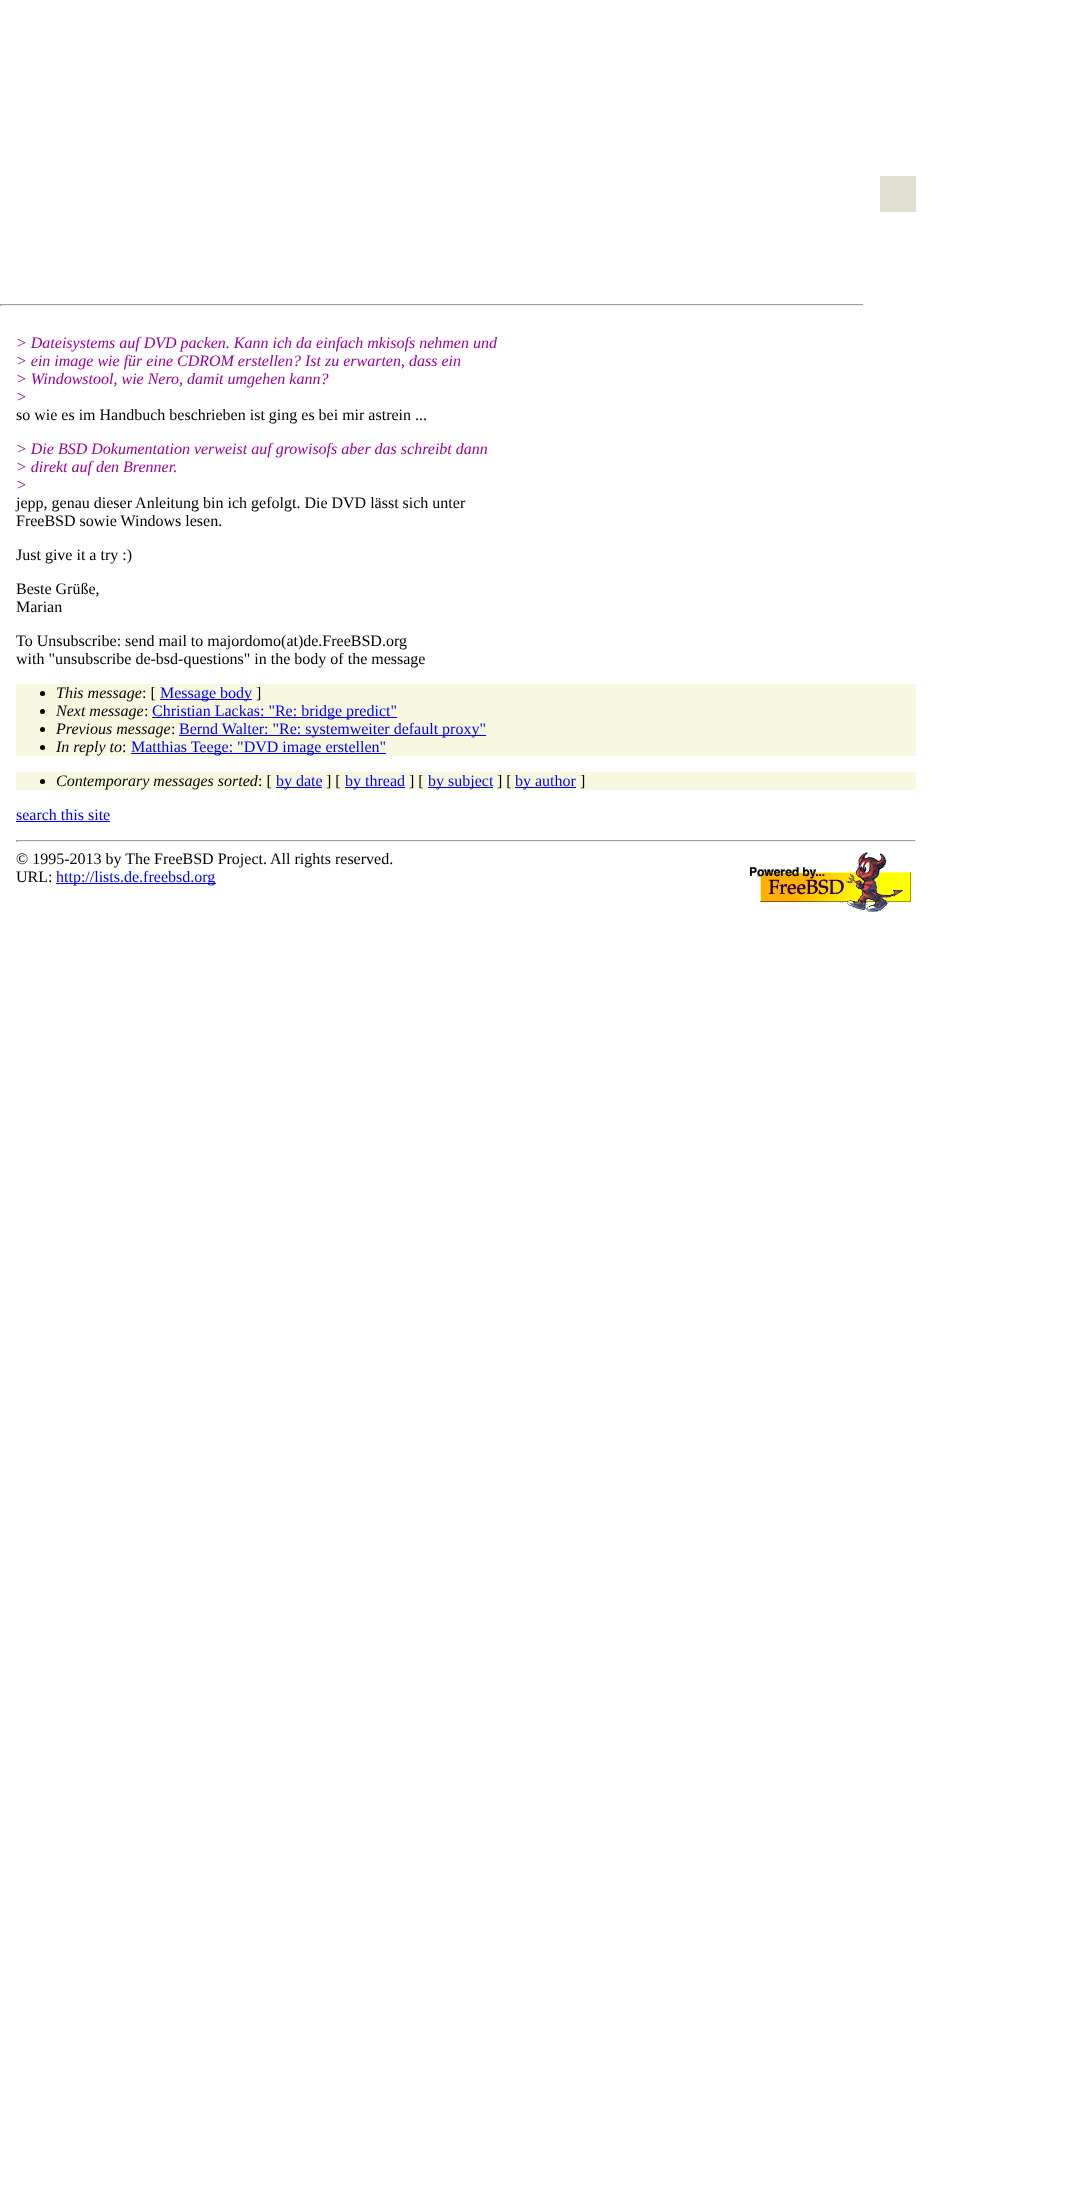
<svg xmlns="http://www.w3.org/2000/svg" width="1074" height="2201">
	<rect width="100%" height="100%" fill="#FFFFFF" />
	<rect x="0" y="304" width="864" height="1" fill="#9F9F9F" />
	<rect x="863" y="304" width="1" height="2" fill="#EEEEEE" />
	<rect x="0" y="305" width="864" height="1" fill="#EEEEEE" />
	<rect x="0" y="304" width="1" height="2" fill="#9F9F9F" />
	<rect x="880" y="176" width="36" height="36" fill="#E0E0D0" />
	<g font-family="Liberation Serif" font-size="16" font-style="italic" fill="#990099">
		<text x="16" y="348">&gt; Dateisystems auf DVD packen. Kann ich da einfach mkisofs nehmen und</text>
		<text x="16" y="366">&gt; ein image wie für eine CDROM erstellen? Ist zu erwarten, dass ein</text>
		<text x="16" y="384">&gt; Windowstool, wie Nero, damit umgehen kann?</text>
		<text x="16" y="402">&gt;</text>
	</g>
	<text x="16" y="420" font-family="Liberation Serif" font-size="16" fill="#000000">so wie es im Handbuch beschrieben ist ging es bei mir astrein ...</text>
	<g font-family="Liberation Serif" font-size="16" font-style="italic" fill="#990099">
		<text x="16" y="454">&gt; Die BSD Dokumentation verweist auf growisofs aber das schreibt dann</text>
		<text x="16" y="472">&gt; direkt auf den Brenner.</text>
		<text x="16" y="490">&gt;</text>
	</g>
	<g font-family="Liberation Serif" font-size="16" fill="#000000">
		<text x="16" y="508">jepp, genau dieser Anleitung bin ich gefolgt. Die DVD lässt sich unter</text>
		<text x="16" y="526">FreeBSD sowie Windows lesen.</text>
		<text x="16" y="560">Just give it a try :)</text>
		<text x="16" y="594">Beste Grüße,</text>
		<text x="16" y="612">Marian</text>
		<text x="16" y="646">To Unsubscribe: send mail to majordomo(at)de.FreeBSD.org</text>
		<text x="16" y="664">with "unsubscribe de-bsd-questions" in the body of the message</text>
	</g>
	<rect x="16" y="684" width="900" height="72" fill="#F8F8E0" />
	<circle cx="42.5" cy="693.5" r="2.5" fill="#000000" />
	<text x="56" y="698" font-family="Liberation Serif" font-size="16" font-style="italic" fill="#000000">This message</text>
	<text x="142" y="698" font-family="Liberation Serif" font-size="16" fill="#000000">: [</text>
	<rect x="160" y="699" width="92" height="1" fill="#0000EE" />
	<text x="160" y="698" font-family="Liberation Serif" font-size="16" fill="#0000EE">Message body</text>
	<text x="256" y="698" font-family="Liberation Serif" font-size="16" fill="#000000">]</text>
	<circle cx="42.5" cy="711.5" r="2.5" fill="#000000" />
	<text x="56" y="716" font-family="Liberation Serif" font-size="16" font-style="italic" fill="#000000">Next message</text>
	<text x="144" y="716" font-family="Liberation Serif" font-size="16" fill="#000000">:</text>
	<rect x="152" y="717" width="245" height="1" fill="#0000EE" />
	<text x="152" y="716" font-family="Liberation Serif" font-size="16" fill="#0000EE">Christian Lackas: "Re: bridge predict"</text>
	<circle cx="42.5" cy="729.5" r="2.5" fill="#000000" />
	<text x="56" y="734" font-family="Liberation Serif" font-size="16" font-style="italic" fill="#000000">Previous message</text>
	<text x="171" y="734" font-family="Liberation Serif" font-size="16" fill="#000000">:</text>
	<rect x="179" y="735" width="307" height="1" fill="#0000EE" />
	<text x="179" y="734" font-family="Liberation Serif" font-size="16" fill="#0000EE">Bernd Walter: "Re: systemweiter default proxy"</text>
	<circle cx="42.5" cy="747.5" r="2.5" fill="#000000" />
	<text x="56" y="752" font-family="Liberation Serif" font-size="16" font-style="italic" fill="#000000">In reply to</text>
	<text x="122" y="752" font-family="Liberation Serif" font-size="16" fill="#000000">:</text>
	<rect x="131" y="753" width="255" height="1" fill="#0000EE" />
	<text x="131" y="752" font-family="Liberation Serif" font-size="16" fill="#0000EE">Matthias Teege: "DVD image erstellen"</text>
	<rect x="16" y="772" width="900" height="18" fill="#F8F8E0" />
	<circle cx="42.5" cy="781.5" r="2.5" fill="#000000" />
	<text x="56" y="786" font-family="Liberation Serif" font-size="16" font-style="italic" fill="#000000">Contemporary messages sorted</text>
	<text x="258" y="786" font-family="Liberation Serif" font-size="16" fill="#000000">: [</text>
	<rect x="276" y="787" width="46" height="1" fill="#0000EE" />
	<text x="276" y="786" font-family="Liberation Serif" font-size="16" fill="#0000EE">by date</text>
	<text x="326" y="786" font-family="Liberation Serif" font-size="16" fill="#000000">] [</text>
	<rect x="345" y="787" width="60" height="1" fill="#0000EE" />
	<text x="345" y="786" font-family="Liberation Serif" font-size="16" fill="#0000EE">by thread</text>
	<text x="409" y="786" font-family="Liberation Serif" font-size="16" fill="#000000">] [</text>
	<rect x="428" y="787" width="65" height="1" fill="#0000EE" />
	<text x="428" y="786" font-family="Liberation Serif" font-size="16" fill="#0000EE">by subject</text>
	<text x="497" y="786" font-family="Liberation Serif" font-size="16" fill="#000000">] [</text>
	<rect x="515" y="787" width="61" height="1" fill="#0000EE" />
	<text x="515" y="786" font-family="Liberation Serif" font-size="16" fill="#0000EE">by author</text>
	<text x="580" y="786" font-family="Liberation Serif" font-size="16" fill="#000000">]</text>
	<text x="16" y="820" font-family="Liberation Serif" font-size="16" fill="#0000EE">search this site</text>
	<rect x="16" y="821" width="94" height="1" fill="#0000EE" />
	<rect x="16" y="840" width="900" height="1" fill="#9F9F9F" />
	<rect x="915" y="840" width="1" height="2" fill="#EEEEEE" />
	<rect x="16" y="841" width="900" height="1" fill="#EEEEEE" />
	<rect x="16" y="840" width="1" height="2" fill="#9F9F9F" />
	<text x="16" y="864" font-family="Liberation Serif" font-size="16" fill="#000000">© 1995-2013 by The FreeBSD Project. All rights reserved.</text>
	<image x="750" y="852" width="161" height="60" href="assets/img1.png" />
	<text x="16" y="882" font-family="Liberation Serif" font-size="16" fill="#000000">URL:</text>
	<rect x="56" y="883" width="160" height="1" fill="#0000EE" />
	<text x="56" y="882" font-family="Liberation Serif" font-size="16" fill="#0000EE">http://lists.de.freebsd.org</text>
</svg>
